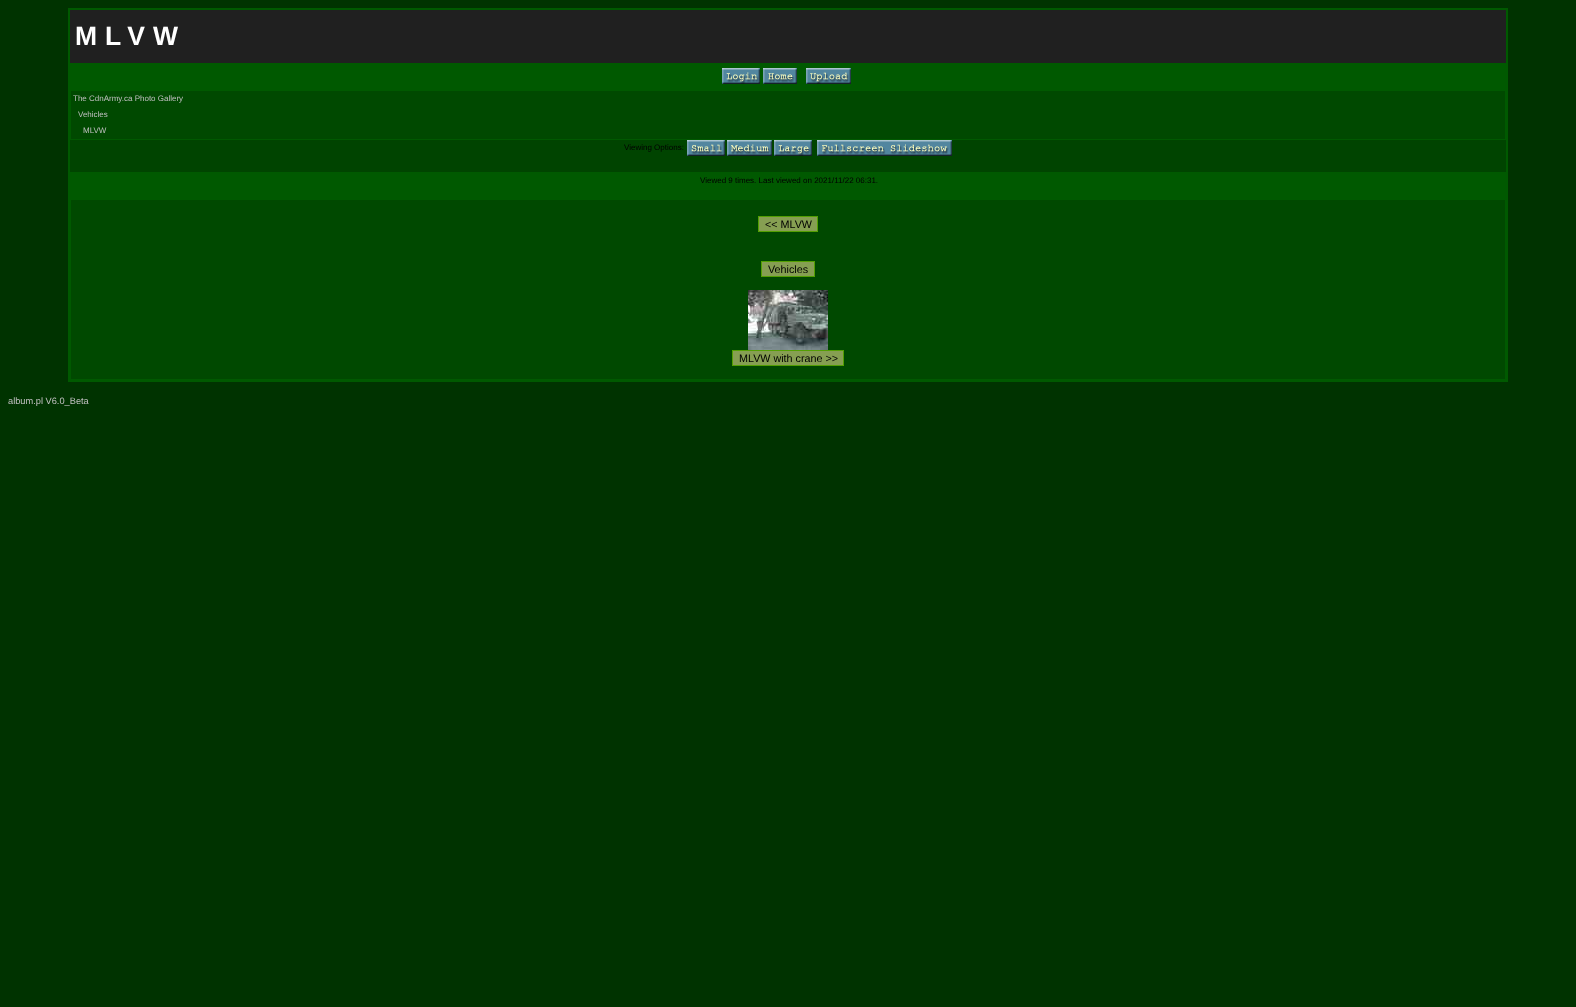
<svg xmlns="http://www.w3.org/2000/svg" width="1576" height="1007">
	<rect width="100%" height="100%" fill="#003300" />
	<rect x="70" y="140" width="1436" height="32" fill="#004400" />
	<rect x="69" y="9" width="1438" height="372" fill="none" stroke="#005900" stroke-width="2" />
	<rect x="70" y="10" width="1436" height="53" fill="#202020" />
	<text x="75" y="45" font-family="Liberation Sans" font-size="26.5" font-weight="700" letter-spacing="8" fill="#FFFFFF">MLVW</text>
	<rect x="70" y="63" width="1436" height="27" fill="#005900" />
	<image x="722" y="68" width="38" height="16" href="assets/img1.png" />
	<image x="763" y="68" width="34" height="16" href="assets/img2.png" />
	<image x="806" y="68" width="45" height="16" href="assets/img3.png" />
	<rect x="70.5" y="90.5" width="1435" height="49" fill="#004900" stroke="#005900" />
	<g font-family="Liberation Sans" font-size="8" fill="#C0C0C0">
		<text x="73" y="101">The CdnArmy.ca Photo Gallery</text>
		<text x="78" y="117">Vehicles</text>
		<text x="83" y="133">MLVW</text>
	</g>
	<text x="624" y="150" font-family="Liberation Sans" font-size="8" fill="#000000">Viewing Options:</text>
	<image x="687" y="140" width="38" height="16" href="assets/img4.png" />
	<image x="727" y="140" width="45" height="16" href="assets/img5.png" />
	<image x="774" y="140" width="38" height="16" href="assets/img6.png" />
	<image x="817" y="140" width="135" height="16" href="assets/img7.png" />
	<rect x="70" y="172" width="1436" height="27" fill="#005900" />
	<text x="700" y="183" font-family="Liberation Sans" font-size="8" fill="#000000">Viewed 9 times. Last viewed on 2021/11/22 06:31.</text>
	<rect x="70.5" y="199.5" width="1435" height="180" fill="#004900" stroke="#005900" />
	<rect x="758.5" y="216.5" width="59" height="15" fill="#869F52" stroke="#539F02" />
	<text x="765" y="228" font-family="Liberation Sans" font-size="10.75" fill="#000000">&lt;&lt; MLVW</text>
	<rect x="761.5" y="261.5" width="53" height="15" fill="#869F52" stroke="#539F02" />
	<text x="768" y="273" font-family="Liberation Sans" font-size="10.75" fill="#000000">Vehicles</text>
	<image x="748" y="290" width="80" height="60" href="assets/img8.png" />
	<rect x="732.5" y="350.5" width="111" height="15" fill="#869F52" stroke="#539F02" />
	<text x="739" y="362" font-family="Liberation Sans" font-size="10.75" fill="#000000">MLVW with crane &gt;&gt;</text>
	<text x="8" y="404" font-family="Liberation Sans" font-size="9.25" fill="#C0C0C0">album.pl V6.0_Beta</text>
</svg>
